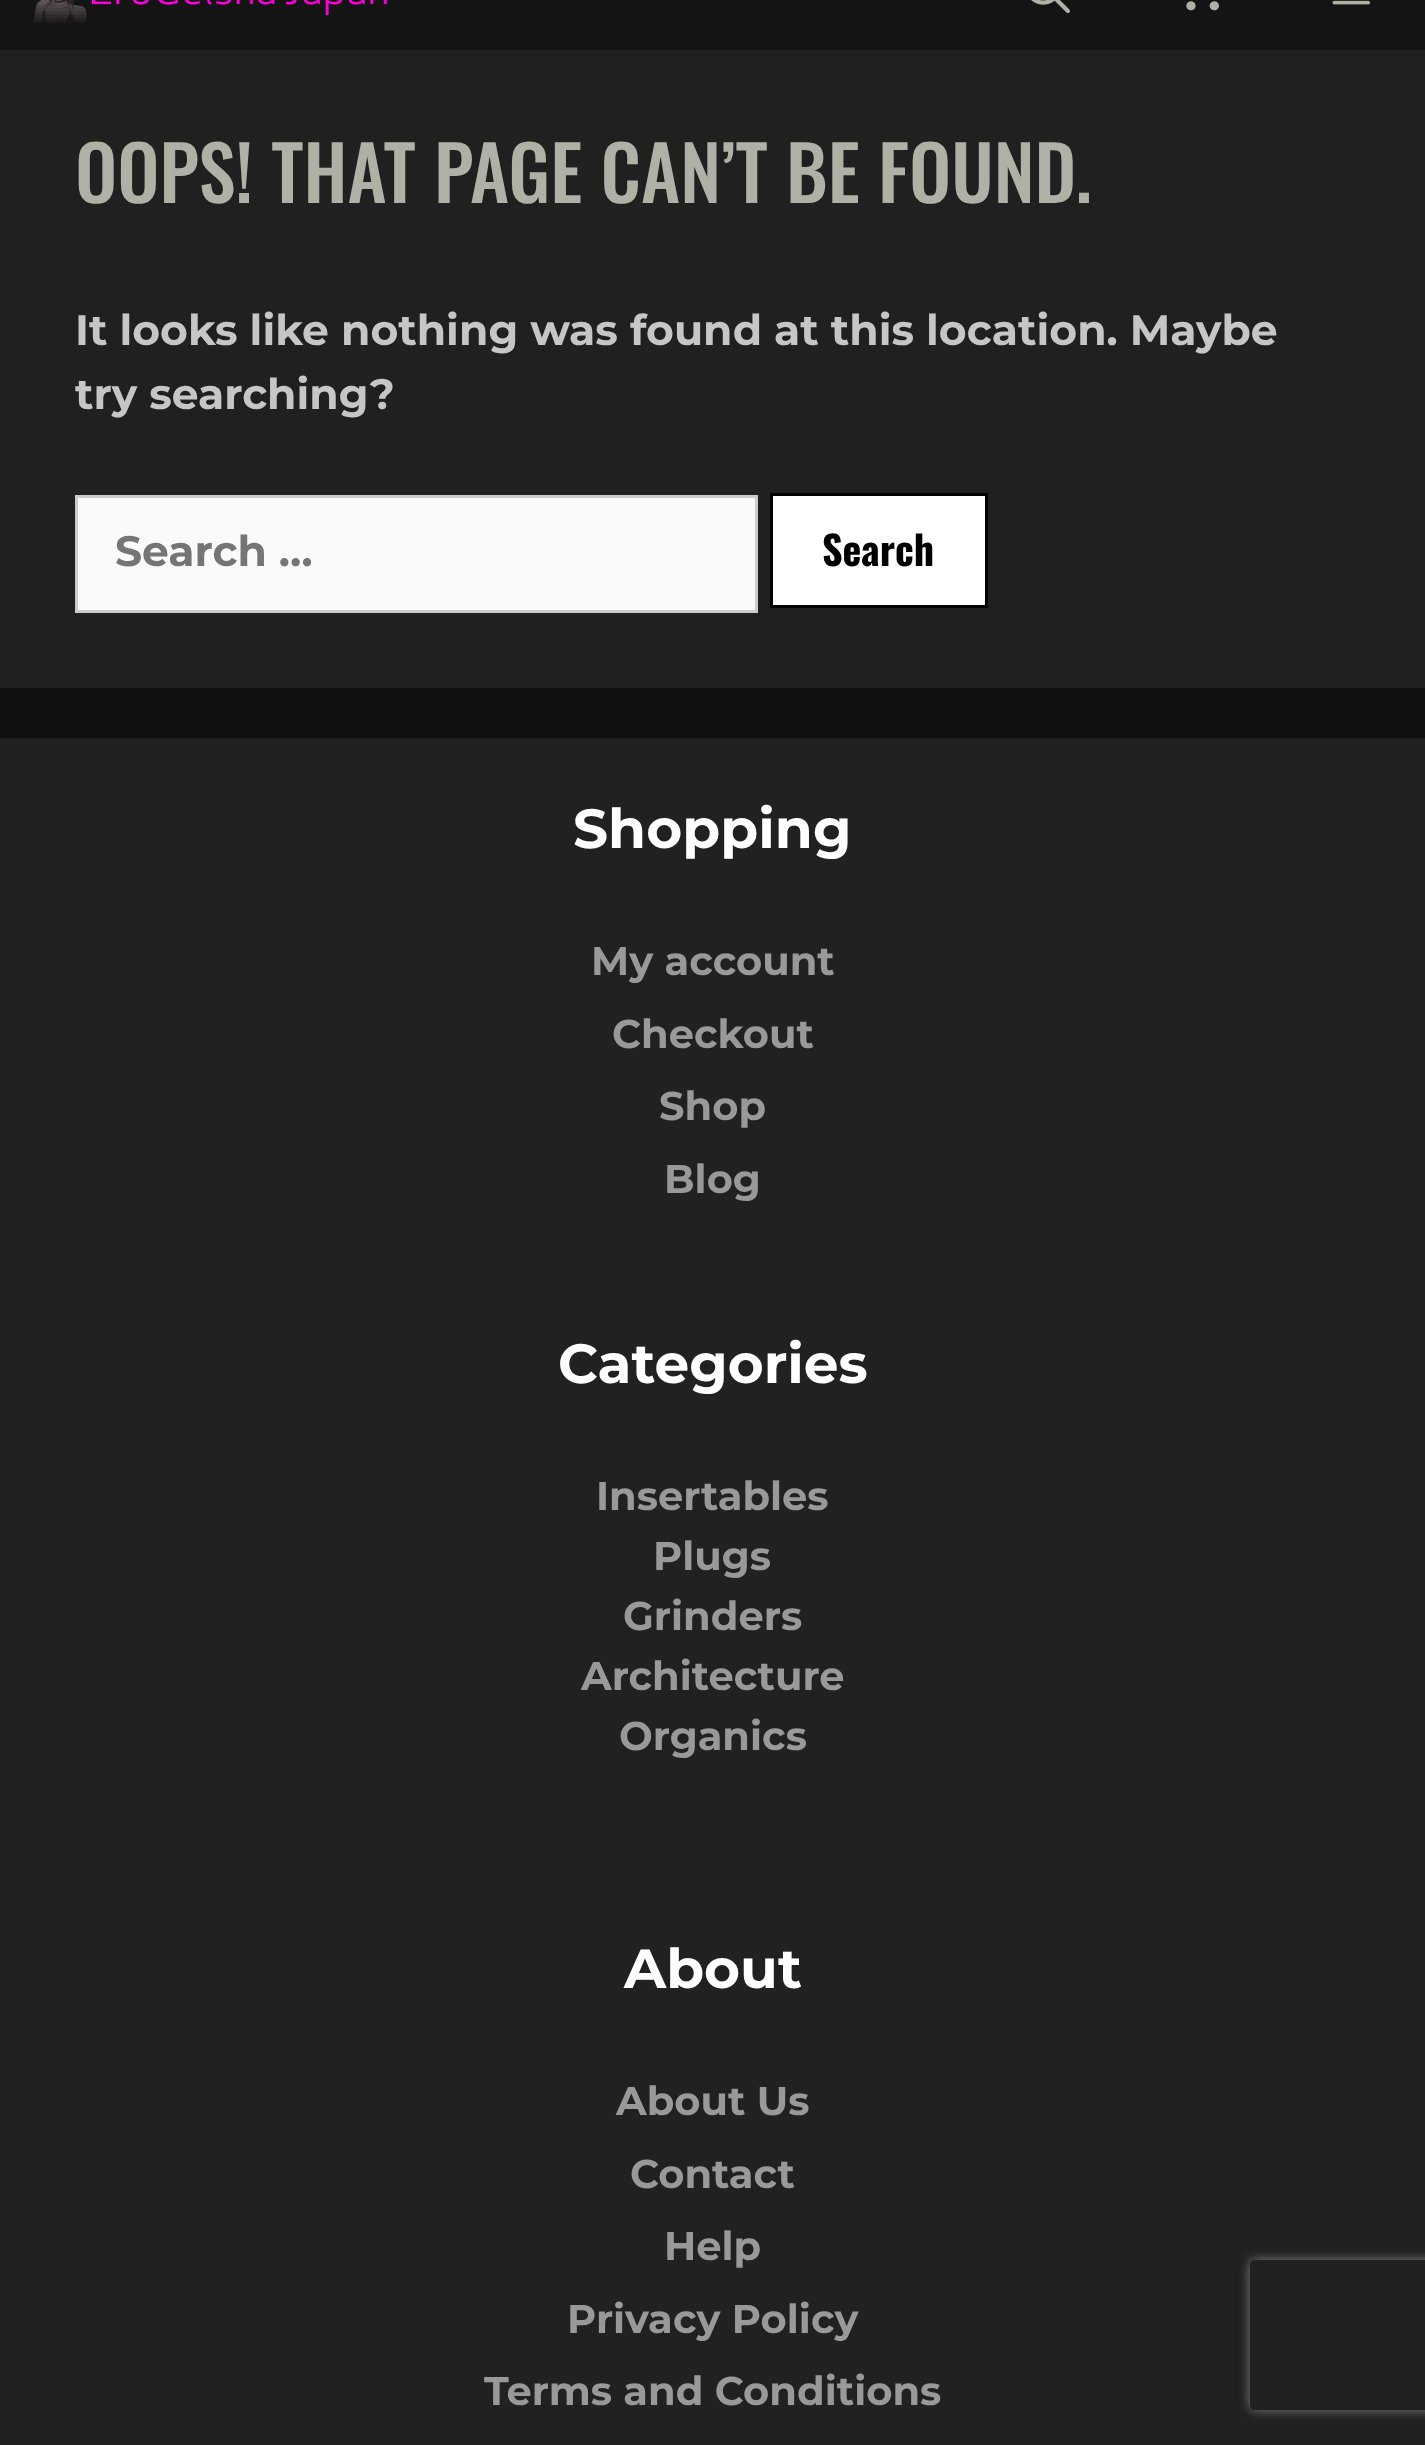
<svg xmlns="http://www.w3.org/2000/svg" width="1425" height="2445">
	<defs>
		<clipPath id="clip1"><path d="M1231 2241H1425V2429H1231ZM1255 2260H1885C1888 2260 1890 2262 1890 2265V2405C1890 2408 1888 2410 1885 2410H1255C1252 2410 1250 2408 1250 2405V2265C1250 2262 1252 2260 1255 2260Z" clip-rule="evenodd" /></clipPath>
	</defs>
	<rect width="100%" height="100%" fill="#101010" />
	<rect x="0" y="0" width="1425" height="50" fill="#141414" />
	<image x="33" y="0" width="355" height="23" href="assets/img1.png" />
	<image x="1031" y="0" width="39" height="14" href="assets/img2.png" />
	<image x="1186" y="1" width="33" height="10" href="assets/img3.png" />
	<image x="1332" y="0" width="38" height="5" href="assets/img4.png" />
	<rect x="0" y="50" width="1425" height="638" fill="#202020" />
	<text x="75" y="203" font-family="Oswald" font-size="75" font-weight="500" fill="#B0B1A6">OOPS! THAT PAGE CAN’T BE FOUND.</text>
	<g font-family="Montserrat" font-size="42.5" font-weight="700" fill="#C6C6C6">
		<text x="75" y="345">It looks like nothing was found at this location. Maybe</text>
		<text x="75" y="409">try searching?</text>
	</g>
	<rect x="76.5" y="496.5" width="680" height="115" fill="#FAFAFA" stroke="#CCCCCC" stroke-width="3" />
	<text x="115" y="566" font-family="Montserrat" font-size="42.5" font-weight="700" fill="#757575">Search …</text>
	<rect x="771.5" y="494.5" width="215" height="112" fill="#FFFFFF" stroke="#000000" stroke-width="3" />
	<text x="822" y="566" font-family="Oswald" font-size="40" font-weight="700" fill="#000000">Search</text>
	<rect x="0" y="738" width="1425" height="1707" fill="#212121" />
	<text x="573" y="848" font-family="Montserrat" font-size="55" font-weight="700" fill="#FFFFFF">Shopping</text>
	<g font-family="Montserrat" font-size="40" font-weight="700" fill="#999999">
		<text x="591" y="975">My account</text>
		<text x="612" y="1048">Checkout</text>
		<text x="659" y="1120">Shop</text>
		<text x="664" y="1193">Blog</text>
	</g>
	<text x="558" y="1383" font-family="Montserrat" font-size="55" font-weight="700" fill="#FFFFFF">Categories</text>
	<g font-family="Montserrat" font-size="40" font-weight="700" fill="#999999">
		<text x="596" y="1510">Insertables</text>
		<text x="653" y="1570">Plugs</text>
		<text x="623" y="1630">Grinders</text>
		<text x="581" y="1690">Architecture</text>
		<text x="619" y="1750">Organics</text>
	</g>
	<text x="624" y="1988" font-family="Montserrat" font-size="55" font-weight="700" fill="#FFFFFF">About</text>
	<g font-family="Montserrat" font-size="40" font-weight="700" fill="#999999">
		<text x="616" y="2115">About Us</text>
		<text x="630" y="2188">Contact</text>
		<text x="664" y="2260">Help</text>
		<text x="567" y="2333">Privacy Policy</text>
		<text x="484" y="2405">Terms and Conditions</text>
	</g>
	<g clip-path="url(#clip1)">
		<rect x="1250" y="2260" width="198" height="150" rx="5" fill="#808080" filter="blur(6px)" />
	</g>
</svg>
